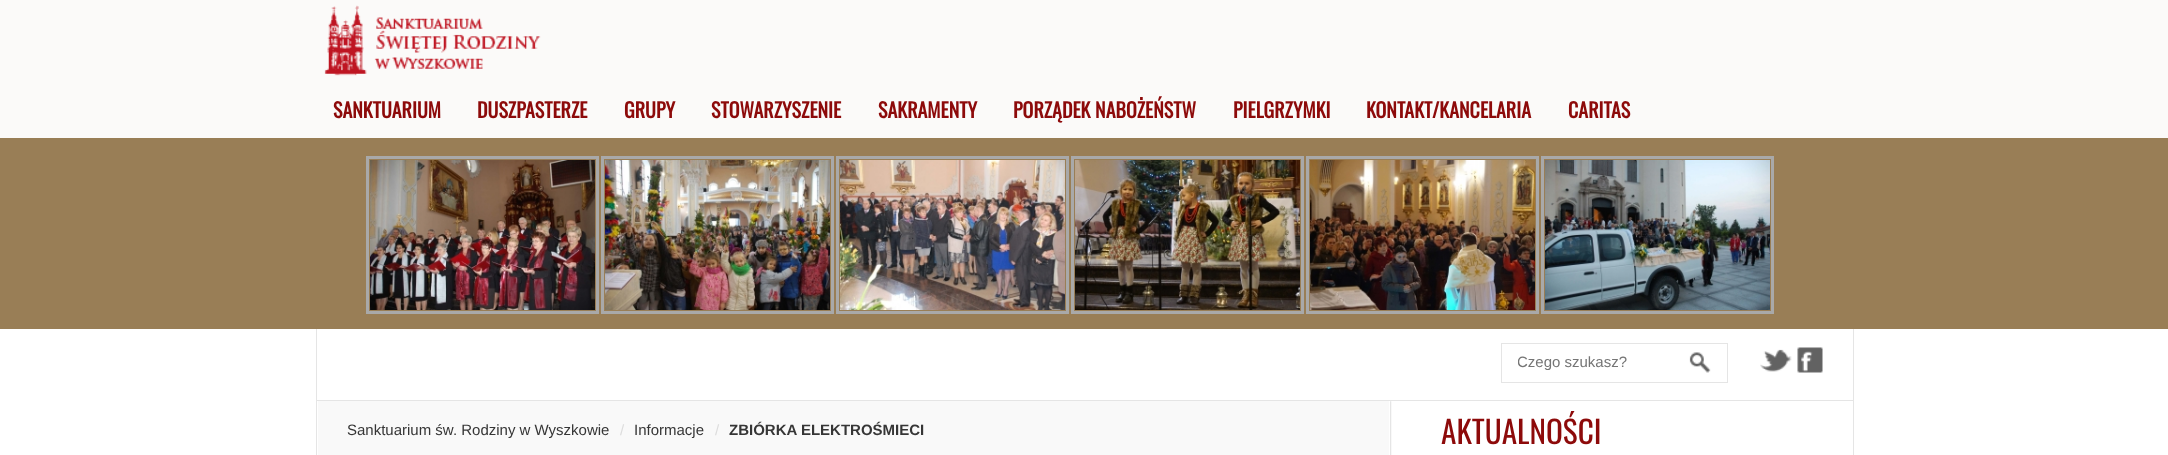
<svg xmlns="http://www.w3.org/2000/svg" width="2168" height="455">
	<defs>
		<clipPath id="clip1"><rect x="1518" y="354" width="193" height="17" /></clipPath>
	</defs>
	<rect width="100%" height="100%" fill="#FFFFFF" />
	<rect x="0" y="0" width="2168" height="138" fill="#FBFAF9" />
	<image x="324" y="5" width="217" height="71" href="assets/img1.png" />
	<g font-family="Oswald" font-size="20" font-weight="700" fill="#8D0A0A">
		<text x="333" y="118">SANKTUARIUM</text>
		<text x="477" y="118">DUSZPASTERZE</text>
		<text x="624" y="118">GRUPY</text>
		<text x="711" y="118">STOWARZYSZENIE</text>
		<text x="878" y="118">SAKRAMENTY</text>
		<text x="1013" y="118">PORZĄDEK NABOŻEŃSTW</text>
		<text x="1233" y="118">PIELGRZYMKI</text>
		<text x="1366" y="118">KONTAKT/KANCELARIA</text>
		<text x="1568" y="118">CARITAS</text>
	</g>
	<rect x="0" y="138" width="2168" height="191" fill="#997E56" />
	<rect x="367.5" y="157.5" width="230" height="155" fill="none" stroke="#A9A9A9" stroke-width="3" />
	<image x="370" y="160" width="225" height="150" href="assets/img2.png" />
	<rect x="602.5" y="157.5" width="230" height="155" fill="none" stroke="#A9A9A9" stroke-width="3" />
	<image x="605" y="160" width="225" height="150" href="assets/img3.png" />
	<rect x="837.5" y="157.5" width="230" height="155" fill="none" stroke="#A9A9A9" stroke-width="3" />
	<image x="840" y="160" width="225" height="150" href="assets/img4.png" />
	<rect x="1072.5" y="157.5" width="230" height="155" fill="none" stroke="#A9A9A9" stroke-width="3" />
	<image x="1075" y="160" width="225" height="150" href="assets/img5.png" />
	<rect x="1307.5" y="157.5" width="230" height="155" fill="none" stroke="#A9A9A9" stroke-width="3" />
	<image x="1310" y="160" width="225" height="150" href="assets/img6.png" />
	<rect x="1542.5" y="157.5" width="230" height="155" fill="none" stroke="#A9A9A9" stroke-width="3" />
	<image x="1545" y="160" width="225" height="150" href="assets/img7.png" />
	<rect x="1853" y="329" width="1" height="126" fill="#E5E5E5" />
	<rect x="316" y="400" width="1538" height="1" fill="#E5E5E5" />
	<rect x="316" y="329" width="1" height="126" fill="#E5E5E5" />
	<image x="1689" y="352" width="22" height="21" href="assets/img8.png" />
	<rect x="1501.5" y="343.5" width="226" height="39" fill="none" stroke="#E5E5E5" />
	<g clip-path="url(#clip1)">
		<text x="1517" y="367" font-family="Liberation Sans" font-size="15" fill="#757575">Czego szukasz?</text>
	</g>
	<image x="1760" y="349" width="32" height="23" href="assets/img9.png" />
	<image x="1797" y="347" width="26" height="26" href="assets/img10.png" />
	<image x="1390" y="401" width="2" height="54" href="assets/img11.png" />
	<rect x="318" y="401" width="1071" height="54" fill="#F9F9F9" />
	<text x="347" y="435" font-family="Liberation Sans" font-size="15" fill="#363636">Sanktuarium św. Rodziny w Wyszkowie</text>
	<text x="620" y="435" font-family="Liberation Sans" font-size="15" fill="#DDDDDD">/</text>
	<text x="634" y="435" font-family="Liberation Sans" font-size="15" fill="#363636">Informacje</text>
	<text x="715" y="435" font-family="Liberation Sans" font-size="15" fill="#DDDDDD">/</text>
	<text x="729" y="435" font-family="Liberation Sans" font-size="15" font-weight="700" fill="#363636">ZBIÓRKA ELEKTROŚMIECI</text>
	<text x="1441" y="444" font-family="Oswald" font-size="31.25" fill="#8D0A0A">AKTUALNOŚCI</text>
</svg>
